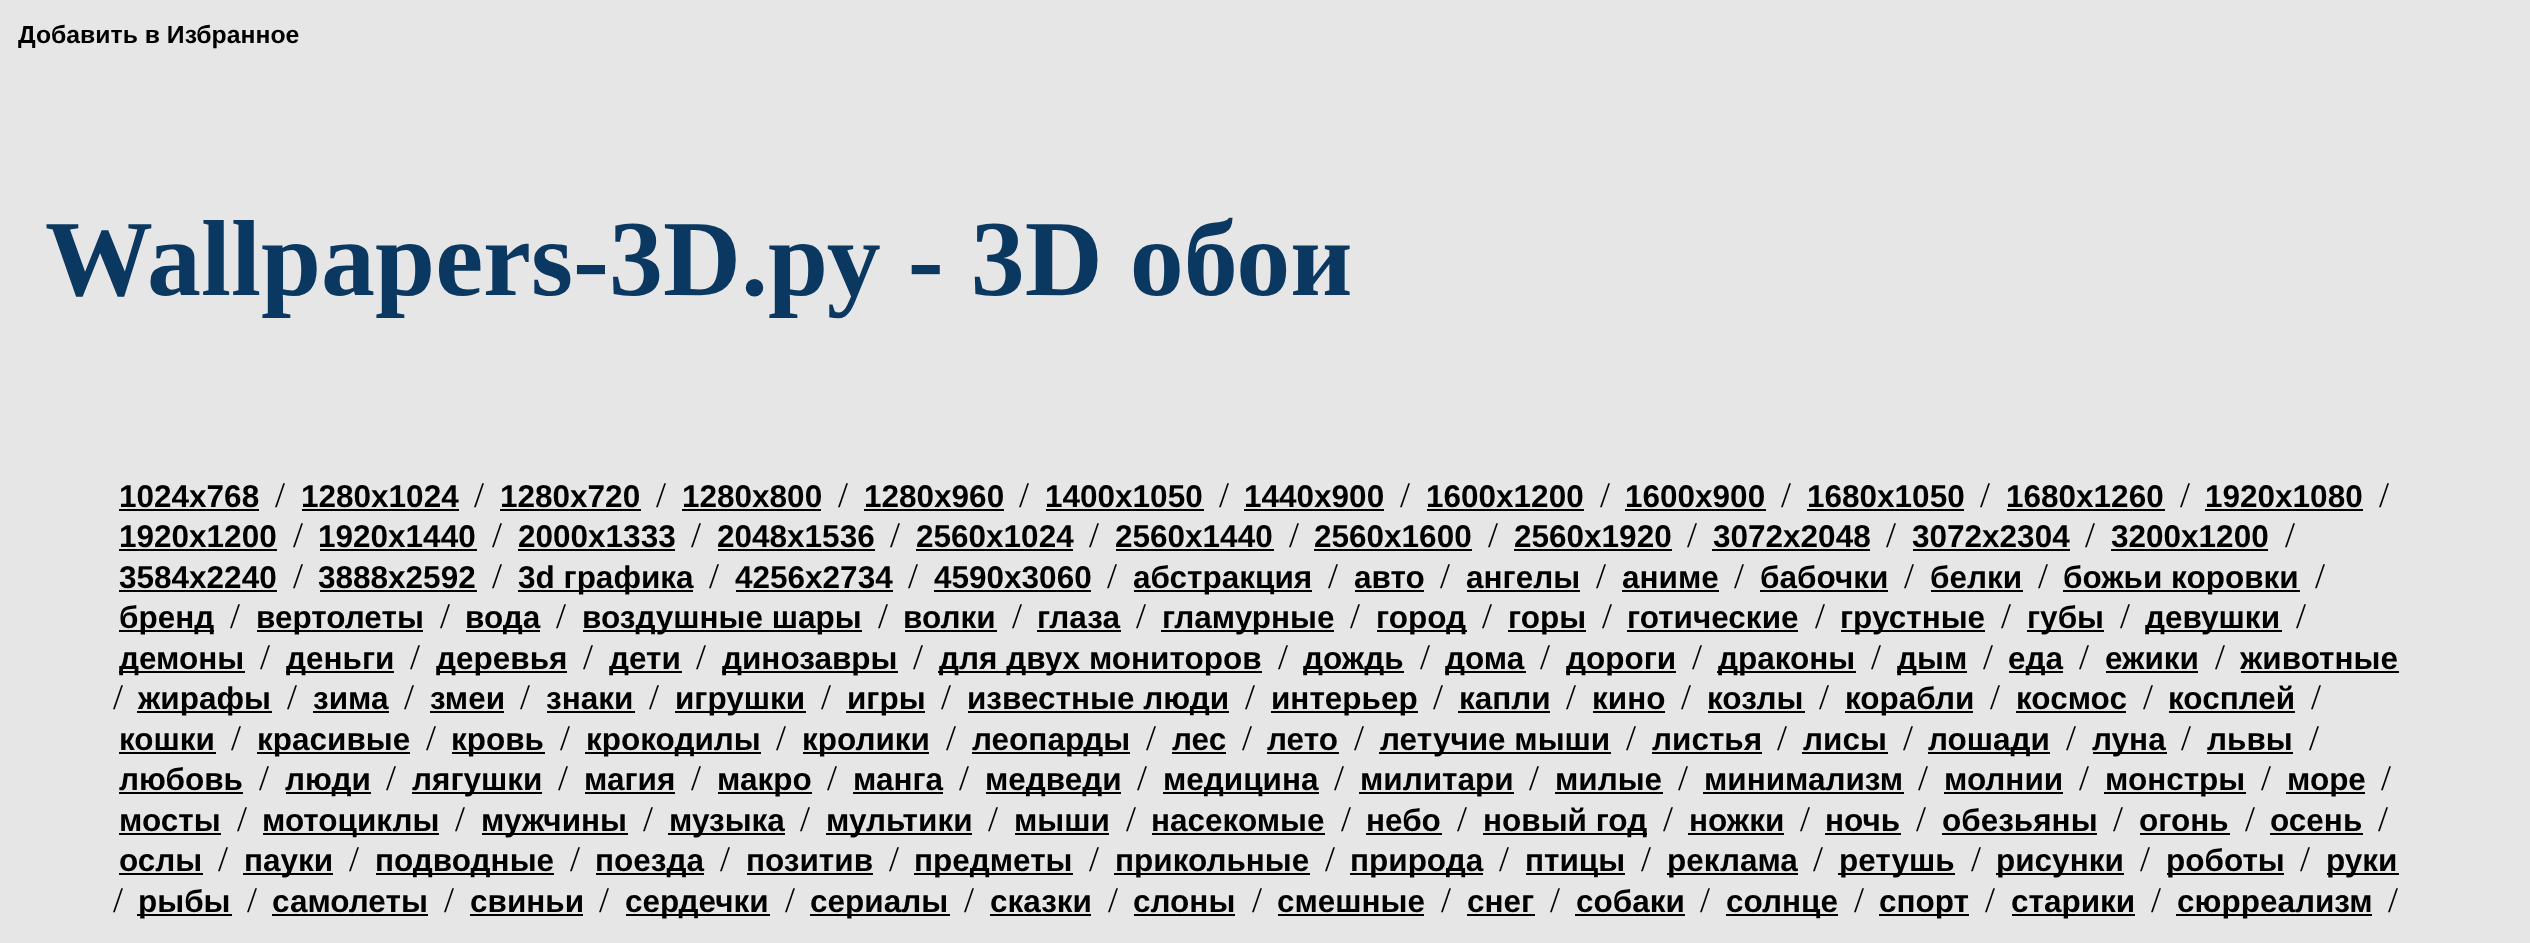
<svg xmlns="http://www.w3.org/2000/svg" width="2530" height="943">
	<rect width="100%" height="100%" fill="#E6E6E6" />
	<text x="18" y="43" font-family="Liberation Sans" font-size="24.75" font-weight="700" fill="#000000">Добавить в Избранное</text>
	<text x="45" y="295" font-family="Liberation Serif" font-size="108" font-weight="700" fill="#0B3861">Wallpapers-3D.ру - 3D обои</text>
	<text x="119" y="507" font-family="Liberation Sans" font-size="31.5" font-weight="700" fill="#000000">1024х768</text>
	<rect x="119" y="509" width="140" height="2" fill="#000000" />
	<text x="275" y="507" font-family="Liberation Serif" font-size="36" fill="#000000">/</text>
	<text x="301" y="507" font-family="Liberation Sans" font-size="31.5" font-weight="700" fill="#000000">1280х1024</text>
	<rect x="302" y="509" width="157" height="2" fill="#000000" />
	<text x="474" y="507" font-family="Liberation Serif" font-size="36" fill="#000000">/</text>
	<text x="500" y="507" font-family="Liberation Sans" font-size="31.5" font-weight="700" fill="#000000">1280х720</text>
	<rect x="500" y="509" width="141" height="2" fill="#000000" />
	<text x="656" y="507" font-family="Liberation Serif" font-size="36" fill="#000000">/</text>
	<text x="682" y="507" font-family="Liberation Sans" font-size="31.5" font-weight="700" fill="#000000">1280х800</text>
	<rect x="682" y="509" width="139" height="2" fill="#000000" />
	<text x="838" y="507" font-family="Liberation Serif" font-size="36" fill="#000000">/</text>
	<text x="864" y="507" font-family="Liberation Sans" font-size="31.5" font-weight="700" fill="#000000">1280х960</text>
	<rect x="864" y="509" width="140" height="2" fill="#000000" />
	<text x="1019" y="507" font-family="Liberation Serif" font-size="36" fill="#000000">/</text>
	<text x="1045" y="507" font-family="Liberation Sans" font-size="31.5" font-weight="700" fill="#000000">1400х1050</text>
	<rect x="1046" y="509" width="158" height="2" fill="#000000" />
	<text x="1219" y="507" font-family="Liberation Serif" font-size="36" fill="#000000">/</text>
	<text x="1244" y="507" font-family="Liberation Sans" font-size="31.5" font-weight="700" fill="#000000">1440х900</text>
	<rect x="1244" y="509" width="140" height="2" fill="#000000" />
	<text x="1400" y="507" font-family="Liberation Serif" font-size="36" fill="#000000">/</text>
	<text x="1426" y="507" font-family="Liberation Sans" font-size="31.5" font-weight="700" fill="#000000">1600х1200</text>
	<rect x="1427" y="509" width="157" height="2" fill="#000000" />
	<text x="1600" y="507" font-family="Liberation Serif" font-size="36" fill="#000000">/</text>
	<text x="1625" y="507" font-family="Liberation Sans" font-size="31.5" font-weight="700" fill="#000000">1600х900</text>
	<rect x="1625" y="509" width="141" height="2" fill="#000000" />
	<text x="1781" y="507" font-family="Liberation Serif" font-size="36" fill="#000000">/</text>
	<text x="1807" y="507" font-family="Liberation Sans" font-size="31.5" font-weight="700" fill="#000000">1680х1050</text>
	<rect x="1807" y="509" width="157" height="2" fill="#000000" />
	<text x="1980" y="507" font-family="Liberation Serif" font-size="36" fill="#000000">/</text>
	<text x="2006" y="507" font-family="Liberation Sans" font-size="31.5" font-weight="700" fill="#000000">1680х1260</text>
	<rect x="2007" y="509" width="158" height="2" fill="#000000" />
	<text x="2180" y="507" font-family="Liberation Serif" font-size="36" fill="#000000">/</text>
	<text x="2205" y="507" font-family="Liberation Sans" font-size="31.5" font-weight="700" fill="#000000">1920х1080</text>
	<rect x="2205" y="509" width="158" height="2" fill="#000000" />
	<text x="2379" y="507" font-family="Liberation Serif" font-size="36" fill="#000000">/</text>
	<text x="119" y="547" font-family="Liberation Sans" font-size="31.5" font-weight="700" fill="#000000">1920х1200</text>
	<rect x="119" y="549" width="158" height="2" fill="#000000" />
	<text x="293" y="547" font-family="Liberation Serif" font-size="36" fill="#000000">/</text>
	<text x="318" y="547" font-family="Liberation Sans" font-size="31.5" font-weight="700" fill="#000000">1920х1440</text>
	<rect x="320" y="549" width="157" height="2" fill="#000000" />
	<text x="492" y="547" font-family="Liberation Serif" font-size="36" fill="#000000">/</text>
	<text x="518" y="547" font-family="Liberation Sans" font-size="31.5" font-weight="700" fill="#000000">2000х1333</text>
	<rect x="518" y="549" width="157" height="2" fill="#000000" />
	<text x="691" y="547" font-family="Liberation Serif" font-size="36" fill="#000000">/</text>
	<text x="717" y="547" font-family="Liberation Sans" font-size="31.5" font-weight="700" fill="#000000">2048х1536</text>
	<rect x="718" y="549" width="157" height="2" fill="#000000" />
	<text x="890" y="547" font-family="Liberation Serif" font-size="36" fill="#000000">/</text>
	<text x="916" y="547" font-family="Liberation Sans" font-size="31.5" font-weight="700" fill="#000000">2560х1024</text>
	<rect x="916" y="549" width="157" height="2" fill="#000000" />
	<text x="1089" y="547" font-family="Liberation Serif" font-size="36" fill="#000000">/</text>
	<text x="1115" y="547" font-family="Liberation Sans" font-size="31.5" font-weight="700" fill="#000000">2560х1440</text>
	<rect x="1116" y="549" width="158" height="2" fill="#000000" />
	<text x="1289" y="547" font-family="Liberation Serif" font-size="36" fill="#000000">/</text>
	<text x="1314" y="547" font-family="Liberation Sans" font-size="31.5" font-weight="700" fill="#000000">2560х1600</text>
	<rect x="1314" y="549" width="158" height="2" fill="#000000" />
	<text x="1488" y="547" font-family="Liberation Serif" font-size="36" fill="#000000">/</text>
	<text x="1514" y="547" font-family="Liberation Sans" font-size="31.5" font-weight="700" fill="#000000">2560х1920</text>
	<rect x="1514" y="549" width="158" height="2" fill="#000000" />
	<text x="1687" y="547" font-family="Liberation Serif" font-size="36" fill="#000000">/</text>
	<text x="1713" y="547" font-family="Liberation Sans" font-size="31.5" font-weight="700" fill="#000000">3072х2048</text>
	<rect x="1712" y="549" width="158" height="2" fill="#000000" />
	<text x="1886" y="547" font-family="Liberation Serif" font-size="36" fill="#000000">/</text>
	<text x="1912" y="547" font-family="Liberation Sans" font-size="31.5" font-weight="700" fill="#000000">3072х2304</text>
	<rect x="1913" y="549" width="157" height="2" fill="#000000" />
	<text x="2085" y="547" font-family="Liberation Serif" font-size="36" fill="#000000">/</text>
	<text x="2111" y="547" font-family="Liberation Sans" font-size="31.5" font-weight="700" fill="#000000">3200х1200</text>
	<rect x="2111" y="549" width="157" height="2" fill="#000000" />
	<text x="2285" y="547" font-family="Liberation Serif" font-size="36" fill="#000000">/</text>
	<text x="119" y="588" font-family="Liberation Sans" font-size="31.5" font-weight="700" fill="#000000">3584х2240</text>
	<rect x="119" y="590" width="158" height="2" fill="#000000" />
	<text x="293" y="588" font-family="Liberation Serif" font-size="36" fill="#000000">/</text>
	<text x="318" y="588" font-family="Liberation Sans" font-size="31.5" font-weight="700" fill="#000000">3888х2592</text>
	<rect x="320" y="590" width="157" height="2" fill="#000000" />
	<text x="492" y="588" font-family="Liberation Serif" font-size="36" fill="#000000">/</text>
	<rect x="518" y="590" width="175" height="2" fill="#000000" />
	<text x="518" y="588" font-family="Liberation Sans" font-size="31.5" font-weight="700" fill="#000000">3d графика</text>
	<text x="709" y="588" font-family="Liberation Serif" font-size="36" fill="#000000">/</text>
	<text x="735" y="588" font-family="Liberation Sans" font-size="31.5" font-weight="700" fill="#000000">4256х2734</text>
	<rect x="736" y="590" width="157" height="2" fill="#000000" />
	<text x="908" y="588" font-family="Liberation Serif" font-size="36" fill="#000000">/</text>
	<text x="934" y="588" font-family="Liberation Sans" font-size="31.5" font-weight="700" fill="#000000">4590х3060</text>
	<rect x="934" y="590" width="157" height="2" fill="#000000" />
	<text x="1107" y="588" font-family="Liberation Serif" font-size="36" fill="#000000">/</text>
	<rect x="1134" y="590" width="178" height="2" fill="#000000" />
	<text x="1133" y="588" font-family="Liberation Sans" font-size="31.5" font-weight="700" fill="#000000">абстракция</text>
	<text x="1328" y="588" font-family="Liberation Serif" font-size="36" fill="#000000">/</text>
	<text x="1354" y="588" font-family="Liberation Sans" font-size="31.5" font-weight="700" fill="#000000">авто</text>
	<rect x="1355" y="590" width="69" height="2" fill="#000000" />
	<text x="1440" y="588" font-family="Liberation Serif" font-size="36" fill="#000000">/</text>
	<text x="1466" y="588" font-family="Liberation Sans" font-size="31.5" font-weight="700" fill="#000000">ангелы</text>
	<rect x="1467" y="590" width="113" height="2" fill="#000000" />
	<text x="1596" y="588" font-family="Liberation Serif" font-size="36" fill="#000000">/</text>
	<text x="1622" y="588" font-family="Liberation Sans" font-size="31.5" font-weight="700" fill="#000000">аниме</text>
	<rect x="1622" y="590" width="97" height="2" fill="#000000" />
	<text x="1734" y="588" font-family="Liberation Serif" font-size="36" fill="#000000">/</text>
	<text x="1760" y="588" font-family="Liberation Sans" font-size="31.5" font-weight="700" fill="#000000">бабочки</text>
	<rect x="1760" y="590" width="128" height="2" fill="#000000" />
	<text x="1904" y="588" font-family="Liberation Serif" font-size="36" fill="#000000">/</text>
	<text x="1930" y="588" font-family="Liberation Sans" font-size="31.5" font-weight="700" fill="#000000">белки</text>
	<rect x="1931" y="590" width="92" height="2" fill="#000000" />
	<text x="2038" y="588" font-family="Liberation Serif" font-size="36" fill="#000000">/</text>
	<rect x="2063" y="590" width="237" height="2" fill="#000000" />
	<text x="2063" y="588" font-family="Liberation Sans" font-size="31.5" font-weight="700" fill="#000000">божьи коровки</text>
	<text x="2315" y="588" font-family="Liberation Serif" font-size="36" fill="#000000">/</text>
	<rect x="119" y="630" width="95" height="2" fill="#000000" />
	<text x="119" y="628" font-family="Liberation Sans" font-size="31.5" font-weight="700" fill="#000000">бренд</text>
	<text x="230" y="628" font-family="Liberation Serif" font-size="36" fill="#000000">/</text>
	<rect x="257" y="630" width="166" height="2" fill="#000000" />
	<text x="256" y="628" font-family="Liberation Sans" font-size="31.5" font-weight="700" fill="#000000">вертолеты</text>
	<text x="440" y="628" font-family="Liberation Serif" font-size="36" fill="#000000">/</text>
	<rect x="466" y="630" width="74" height="2" fill="#000000" />
	<text x="465" y="628" font-family="Liberation Sans" font-size="31.5" font-weight="700" fill="#000000">вода</text>
	<text x="556" y="628" font-family="Liberation Serif" font-size="36" fill="#000000">/</text>
	<rect x="583" y="630" width="279" height="2" fill="#000000" />
	<text x="582" y="628" font-family="Liberation Sans" font-size="31.5" font-weight="700" fill="#000000">воздушные шары</text>
	<text x="878" y="628" font-family="Liberation Serif" font-size="36" fill="#000000">/</text>
	<text x="903" y="628" font-family="Liberation Sans" font-size="31.5" font-weight="700" fill="#000000">волки</text>
	<rect x="905" y="630" width="92" height="2" fill="#000000" />
	<text x="1012" y="628" font-family="Liberation Serif" font-size="36" fill="#000000">/</text>
	<text x="1037" y="628" font-family="Liberation Sans" font-size="31.5" font-weight="700" fill="#000000">глаза</text>
	<rect x="1037" y="630" width="84" height="2" fill="#000000" />
	<text x="1136" y="628" font-family="Liberation Serif" font-size="36" fill="#000000">/</text>
	<rect x="1161" y="630" width="173" height="2" fill="#000000" />
	<text x="1162" y="628" font-family="Liberation Sans" font-size="31.5" font-weight="700" fill="#000000">гламурные</text>
	<text x="1350" y="628" font-family="Liberation Serif" font-size="36" fill="#000000">/</text>
	<rect x="1377" y="630" width="90" height="2" fill="#000000" />
	<text x="1376" y="628" font-family="Liberation Sans" font-size="31.5" font-weight="700" fill="#000000">город</text>
	<text x="1482" y="628" font-family="Liberation Serif" font-size="36" fill="#000000">/</text>
	<rect x="1508" y="630" width="78" height="2" fill="#000000" />
	<text x="1508" y="628" font-family="Liberation Sans" font-size="31.5" font-weight="700" fill="#000000">горы</text>
	<text x="1602" y="628" font-family="Liberation Serif" font-size="36" fill="#000000">/</text>
	<text x="1627" y="628" font-family="Liberation Sans" font-size="31.5" font-weight="700" fill="#000000">готические</text>
	<rect x="1627" y="630" width="171" height="2" fill="#000000" />
	<text x="1815" y="628" font-family="Liberation Serif" font-size="36" fill="#000000">/</text>
	<rect x="1841" y="630" width="144" height="2" fill="#000000" />
	<text x="1840" y="628" font-family="Liberation Sans" font-size="31.5" font-weight="700" fill="#000000">грустные</text>
	<text x="2001" y="628" font-family="Liberation Serif" font-size="36" fill="#000000">/</text>
	<rect x="2027" y="630" width="77" height="2" fill="#000000" />
	<text x="2027" y="628" font-family="Liberation Sans" font-size="31.5" font-weight="700" fill="#000000">губы</text>
	<text x="2120" y="628" font-family="Liberation Serif" font-size="36" fill="#000000">/</text>
	<rect x="2147" y="630" width="135" height="2" fill="#000000" />
	<text x="2145" y="628" font-family="Liberation Sans" font-size="31.5" font-weight="700" fill="#000000">девушки</text>
	<text x="2296" y="628" font-family="Liberation Serif" font-size="36" fill="#000000">/</text>
	<rect x="119" y="671" width="126" height="2" fill="#000000" />
	<text x="119" y="669" font-family="Liberation Sans" font-size="31.5" font-weight="700" fill="#000000">демоны</text>
	<text x="260" y="669" font-family="Liberation Serif" font-size="36" fill="#000000">/</text>
	<rect x="286" y="671" width="108" height="2" fill="#000000" />
	<text x="286" y="669" font-family="Liberation Sans" font-size="31.5" font-weight="700" fill="#000000">деньги</text>
	<text x="410" y="669" font-family="Liberation Serif" font-size="36" fill="#000000">/</text>
	<rect x="437" y="671" width="130" height="2" fill="#000000" />
	<text x="436" y="669" font-family="Liberation Sans" font-size="31.5" font-weight="700" fill="#000000">деревья</text>
	<text x="583" y="669" font-family="Liberation Serif" font-size="36" fill="#000000">/</text>
	<rect x="610" y="671" width="72" height="2" fill="#000000" />
	<text x="609" y="669" font-family="Liberation Sans" font-size="31.5" font-weight="700" fill="#000000">дети</text>
	<text x="696" y="669" font-family="Liberation Serif" font-size="36" fill="#000000">/</text>
	<rect x="722" y="671" width="176" height="2" fill="#000000" />
	<text x="722" y="669" font-family="Liberation Sans" font-size="31.5" font-weight="700" fill="#000000">динозавры</text>
	<text x="913" y="669" font-family="Liberation Serif" font-size="36" fill="#000000">/</text>
	<rect x="938" y="671" width="324" height="2" fill="#000000" />
	<text x="939" y="669" font-family="Liberation Sans" font-size="31.5" font-weight="700" fill="#000000">для двух мониторов</text>
	<text x="1278" y="669" font-family="Liberation Serif" font-size="36" fill="#000000">/</text>
	<rect x="1303" y="671" width="101" height="2" fill="#000000" />
	<text x="1303" y="669" font-family="Liberation Sans" font-size="31.5" font-weight="700" fill="#000000">дождь</text>
	<text x="1420" y="669" font-family="Liberation Serif" font-size="36" fill="#000000">/</text>
	<rect x="1445" y="671" width="81" height="2" fill="#000000" />
	<text x="1445" y="669" font-family="Liberation Sans" font-size="31.5" font-weight="700" fill="#000000">дома</text>
	<text x="1540" y="669" font-family="Liberation Serif" font-size="36" fill="#000000">/</text>
	<rect x="1566" y="671" width="110" height="2" fill="#000000" />
	<text x="1566" y="669" font-family="Liberation Sans" font-size="31.5" font-weight="700" fill="#000000">дороги</text>
	<text x="1692" y="669" font-family="Liberation Serif" font-size="36" fill="#000000">/</text>
	<rect x="1717" y="671" width="139" height="2" fill="#000000" />
	<text x="1718" y="669" font-family="Liberation Sans" font-size="31.5" font-weight="700" fill="#000000">драконы</text>
	<text x="1871" y="669" font-family="Liberation Serif" font-size="36" fill="#000000">/</text>
	<rect x="1897" y="671" width="70" height="2" fill="#000000" />
	<text x="1897" y="669" font-family="Liberation Sans" font-size="31.5" font-weight="700" fill="#000000">дым</text>
	<text x="1983" y="669" font-family="Liberation Serif" font-size="36" fill="#000000">/</text>
	<rect x="2009" y="671" width="54" height="2" fill="#000000" />
	<text x="2008" y="669" font-family="Liberation Sans" font-size="31.5" font-weight="700" fill="#000000">еда</text>
	<text x="2079" y="669" font-family="Liberation Serif" font-size="36" fill="#000000">/</text>
	<text x="2105" y="669" font-family="Liberation Sans" font-size="31.5" font-weight="700" fill="#000000">ежики</text>
	<rect x="2106" y="671" width="92" height="2" fill="#000000" />
	<text x="2215" y="669" font-family="Liberation Serif" font-size="36" fill="#000000">/</text>
	<text x="2240" y="669" font-family="Liberation Sans" font-size="31.5" font-weight="700" fill="#000000">животные</text>
	<rect x="2241" y="671" width="158" height="2" fill="#000000" />
	<text x="113" y="709" font-family="Liberation Serif" font-size="36" fill="#000000">/</text>
	<rect x="137" y="711" width="135" height="2" fill="#000000" />
	<text x="138" y="709" font-family="Liberation Sans" font-size="31.5" font-weight="700" fill="#000000">жирафы</text>
	<text x="287" y="709" font-family="Liberation Serif" font-size="36" fill="#000000">/</text>
	<text x="313" y="709" font-family="Liberation Sans" font-size="31.5" font-weight="700" fill="#000000">зима</text>
	<rect x="313" y="711" width="76" height="2" fill="#000000" />
	<text x="404" y="709" font-family="Liberation Serif" font-size="36" fill="#000000">/</text>
	<text x="430" y="709" font-family="Liberation Sans" font-size="31.5" font-weight="700" fill="#000000">змеи</text>
	<rect x="430" y="711" width="74" height="2" fill="#000000" />
	<text x="520" y="709" font-family="Liberation Serif" font-size="36" fill="#000000">/</text>
	<text x="546" y="709" font-family="Liberation Sans" font-size="31.5" font-weight="700" fill="#000000">знаки</text>
	<rect x="547" y="711" width="88" height="2" fill="#000000" />
	<text x="649" y="709" font-family="Liberation Serif" font-size="36" fill="#000000">/</text>
	<rect x="675" y="711" width="131" height="2" fill="#000000" />
	<text x="675" y="709" font-family="Liberation Sans" font-size="31.5" font-weight="700" fill="#000000">игрушки</text>
	<text x="821" y="709" font-family="Liberation Serif" font-size="36" fill="#000000">/</text>
	<rect x="846" y="711" width="79" height="2" fill="#000000" />
	<text x="847" y="709" font-family="Liberation Sans" font-size="31.5" font-weight="700" fill="#000000">игры</text>
	<text x="941" y="709" font-family="Liberation Serif" font-size="36" fill="#000000">/</text>
	<rect x="968" y="711" width="261" height="2" fill="#000000" />
	<text x="967" y="709" font-family="Liberation Sans" font-size="31.5" font-weight="700" fill="#000000">известные люди</text>
	<text x="1245" y="709" font-family="Liberation Serif" font-size="36" fill="#000000">/</text>
	<rect x="1271" y="711" width="147" height="2" fill="#000000" />
	<text x="1271" y="709" font-family="Liberation Sans" font-size="31.5" font-weight="700" fill="#000000">интерьер</text>
	<text x="1433" y="709" font-family="Liberation Serif" font-size="36" fill="#000000">/</text>
	<text x="1459" y="709" font-family="Liberation Sans" font-size="31.5" font-weight="700" fill="#000000">капли</text>
	<rect x="1458" y="711" width="92" height="2" fill="#000000" />
	<text x="1566" y="709" font-family="Liberation Serif" font-size="36" fill="#000000">/</text>
	<text x="1592" y="709" font-family="Liberation Sans" font-size="31.5" font-weight="700" fill="#000000">кино</text>
	<rect x="1593" y="711" width="72" height="2" fill="#000000" />
	<text x="1681" y="709" font-family="Liberation Serif" font-size="36" fill="#000000">/</text>
	<text x="1707" y="709" font-family="Liberation Sans" font-size="31.5" font-weight="700" fill="#000000">козлы</text>
	<rect x="1708" y="711" width="97" height="2" fill="#000000" />
	<text x="1819" y="709" font-family="Liberation Serif" font-size="36" fill="#000000">/</text>
	<rect x="1845" y="711" width="128" height="2" fill="#000000" />
	<text x="1845" y="709" font-family="Liberation Sans" font-size="31.5" font-weight="700" fill="#000000">корабли</text>
	<text x="1990" y="709" font-family="Liberation Serif" font-size="36" fill="#000000">/</text>
	<text x="2016" y="709" font-family="Liberation Sans" font-size="31.5" font-weight="700" fill="#000000">космос</text>
	<rect x="2016" y="711" width="110" height="2" fill="#000000" />
	<text x="2143" y="709" font-family="Liberation Serif" font-size="36" fill="#000000">/</text>
	<text x="2168" y="709" font-family="Liberation Sans" font-size="31.5" font-weight="700" fill="#000000">косплей</text>
	<rect x="2169" y="711" width="126" height="2" fill="#000000" />
	<text x="2311" y="709" font-family="Liberation Serif" font-size="36" fill="#000000">/</text>
	<text x="119" y="750" font-family="Liberation Sans" font-size="31.5" font-weight="700" fill="#000000">кошки</text>
	<rect x="119" y="752" width="97" height="2" fill="#000000" />
	<text x="231" y="750" font-family="Liberation Serif" font-size="36" fill="#000000">/</text>
	<rect x="257" y="752" width="153" height="2" fill="#000000" />
	<text x="257" y="750" font-family="Liberation Sans" font-size="31.5" font-weight="700" fill="#000000">красивые</text>
	<text x="426" y="750" font-family="Liberation Serif" font-size="36" fill="#000000">/</text>
	<rect x="452" y="752" width="93" height="2" fill="#000000" />
	<text x="451" y="750" font-family="Liberation Sans" font-size="31.5" font-weight="700" fill="#000000">кровь</text>
	<text x="560" y="750" font-family="Liberation Serif" font-size="36" fill="#000000">/</text>
	<rect x="585" y="752" width="176" height="2" fill="#000000" />
	<text x="586" y="750" font-family="Liberation Sans" font-size="31.5" font-weight="700" fill="#000000">крокодилы</text>
	<text x="776" y="750" font-family="Liberation Serif" font-size="36" fill="#000000">/</text>
	<rect x="803" y="752" width="126" height="2" fill="#000000" />
	<text x="802" y="750" font-family="Liberation Sans" font-size="31.5" font-weight="700" fill="#000000">кролики</text>
	<text x="946" y="750" font-family="Liberation Serif" font-size="36" fill="#000000">/</text>
	<rect x="972" y="752" width="158" height="2" fill="#000000" />
	<text x="972" y="750" font-family="Liberation Sans" font-size="31.5" font-weight="700" fill="#000000">леопарды</text>
	<text x="1146" y="750" font-family="Liberation Serif" font-size="36" fill="#000000">/</text>
	<text x="1172" y="750" font-family="Liberation Sans" font-size="31.5" font-weight="700" fill="#000000">лес</text>
	<rect x="1172" y="752" width="54" height="2" fill="#000000" />
	<text x="1242" y="750" font-family="Liberation Serif" font-size="36" fill="#000000">/</text>
	<text x="1267" y="750" font-family="Liberation Sans" font-size="31.5" font-weight="700" fill="#000000">лето</text>
	<rect x="1267" y="752" width="72" height="2" fill="#000000" />
	<text x="1354" y="750" font-family="Liberation Serif" font-size="36" fill="#000000">/</text>
	<rect x="1379" y="752" width="232" height="2" fill="#000000" />
	<text x="1380" y="750" font-family="Liberation Sans" font-size="31.5" font-weight="700" fill="#000000">летучие мыши</text>
	<text x="1626" y="750" font-family="Liberation Serif" font-size="36" fill="#000000">/</text>
	<text x="1652" y="750" font-family="Liberation Sans" font-size="31.5" font-weight="700" fill="#000000">листья</text>
	<rect x="1652" y="752" width="110" height="2" fill="#000000" />
	<text x="1777" y="750" font-family="Liberation Serif" font-size="36" fill="#000000">/</text>
	<text x="1803" y="750" font-family="Liberation Sans" font-size="31.5" font-weight="700" fill="#000000">лисы</text>
	<rect x="1802" y="752" width="86" height="2" fill="#000000" />
	<text x="1903" y="750" font-family="Liberation Serif" font-size="36" fill="#000000">/</text>
	<rect x="1928" y="752" width="122" height="2" fill="#000000" />
	<text x="1928" y="750" font-family="Liberation Sans" font-size="31.5" font-weight="700" fill="#000000">лошади</text>
	<text x="2066" y="750" font-family="Liberation Serif" font-size="36" fill="#000000">/</text>
	<rect x="2093" y="752" width="74" height="2" fill="#000000" />
	<text x="2092" y="750" font-family="Liberation Sans" font-size="31.5" font-weight="700" fill="#000000">луна</text>
	<text x="2181" y="750" font-family="Liberation Serif" font-size="36" fill="#000000">/</text>
	<text x="2207" y="750" font-family="Liberation Sans" font-size="31.5" font-weight="700" fill="#000000">львы</text>
	<rect x="2207" y="752" width="86" height="2" fill="#000000" />
	<text x="2309" y="750" font-family="Liberation Serif" font-size="36" fill="#000000">/</text>
	<text x="119" y="790" font-family="Liberation Sans" font-size="31.5" font-weight="700" fill="#000000">любовь</text>
	<rect x="119" y="792" width="124" height="2" fill="#000000" />
	<text x="259" y="790" font-family="Liberation Serif" font-size="36" fill="#000000">/</text>
	<rect x="286" y="792" width="85" height="2" fill="#000000" />
	<text x="285" y="790" font-family="Liberation Sans" font-size="31.5" font-weight="700" fill="#000000">люди</text>
	<text x="386" y="790" font-family="Liberation Serif" font-size="36" fill="#000000">/</text>
	<rect x="412" y="792" width="130" height="2" fill="#000000" />
	<text x="412" y="790" font-family="Liberation Sans" font-size="31.5" font-weight="700" fill="#000000">лягушки</text>
	<text x="558" y="790" font-family="Liberation Serif" font-size="36" fill="#000000">/</text>
	<text x="584" y="790" font-family="Liberation Sans" font-size="31.5" font-weight="700" fill="#000000">магия</text>
	<rect x="585" y="792" width="90" height="2" fill="#000000" />
	<text x="691" y="790" font-family="Liberation Serif" font-size="36" fill="#000000">/</text>
	<rect x="718" y="792" width="94" height="2" fill="#000000" />
	<text x="717" y="790" font-family="Liberation Sans" font-size="31.5" font-weight="700" fill="#000000">макро</text>
	<text x="827" y="790" font-family="Liberation Serif" font-size="36" fill="#000000">/</text>
	<text x="853" y="790" font-family="Liberation Sans" font-size="31.5" font-weight="700" fill="#000000">манга</text>
	<rect x="853" y="792" width="90" height="2" fill="#000000" />
	<text x="959" y="790" font-family="Liberation Serif" font-size="36" fill="#000000">/</text>
	<rect x="986" y="792" width="135" height="2" fill="#000000" />
	<text x="985" y="790" font-family="Liberation Sans" font-size="31.5" font-weight="700" fill="#000000">медведи</text>
	<text x="1137" y="790" font-family="Liberation Serif" font-size="36" fill="#000000">/</text>
	<rect x="1163" y="792" width="156" height="2" fill="#000000" />
	<text x="1163" y="790" font-family="Liberation Sans" font-size="31.5" font-weight="700" fill="#000000">медицина</text>
	<text x="1334" y="790" font-family="Liberation Serif" font-size="36" fill="#000000">/</text>
	<rect x="1359" y="792" width="155" height="2" fill="#000000" />
	<text x="1360" y="790" font-family="Liberation Sans" font-size="31.5" font-weight="700" fill="#000000">милитари</text>
	<text x="1529" y="790" font-family="Liberation Serif" font-size="36" fill="#000000">/</text>
	<text x="1555" y="790" font-family="Liberation Sans" font-size="31.5" font-weight="700" fill="#000000">милые</text>
	<rect x="1555" y="792" width="108" height="2" fill="#000000" />
	<text x="1678" y="790" font-family="Liberation Serif" font-size="36" fill="#000000">/</text>
	<text x="1704" y="790" font-family="Liberation Sans" font-size="31.5" font-weight="700" fill="#000000">минимализм</text>
	<rect x="1703" y="792" width="201" height="2" fill="#000000" />
	<text x="1918" y="790" font-family="Liberation Serif" font-size="36" fill="#000000">/</text>
	<text x="1944" y="790" font-family="Liberation Sans" font-size="31.5" font-weight="700" fill="#000000">молнии</text>
	<rect x="1944" y="792" width="119" height="2" fill="#000000" />
	<text x="2079" y="790" font-family="Liberation Serif" font-size="36" fill="#000000">/</text>
	<rect x="2104" y="792" width="142" height="2" fill="#000000" />
	<text x="2105" y="790" font-family="Liberation Sans" font-size="31.5" font-weight="700" fill="#000000">монстры</text>
	<text x="2261" y="790" font-family="Liberation Serif" font-size="36" fill="#000000">/</text>
	<rect x="2286" y="792" width="79" height="2" fill="#000000" />
	<text x="2287" y="790" font-family="Liberation Sans" font-size="31.5" font-weight="700" fill="#000000">море</text>
	<text x="2381" y="790" font-family="Liberation Serif" font-size="36" fill="#000000">/</text>
	<text x="119" y="831" font-family="Liberation Sans" font-size="31.5" font-weight="700" fill="#000000">мосты</text>
	<rect x="119" y="833" width="102" height="2" fill="#000000" />
	<text x="237" y="831" font-family="Liberation Serif" font-size="36" fill="#000000">/</text>
	<rect x="263" y="833" width="176" height="2" fill="#000000" />
	<text x="262" y="831" font-family="Liberation Sans" font-size="31.5" font-weight="700" fill="#000000">мотоциклы</text>
	<text x="455" y="831" font-family="Liberation Serif" font-size="36" fill="#000000">/</text>
	<rect x="482" y="833" width="146" height="2" fill="#000000" />
	<text x="481" y="831" font-family="Liberation Sans" font-size="31.5" font-weight="700" fill="#000000">мужчины</text>
	<text x="643" y="831" font-family="Liberation Serif" font-size="36" fill="#000000">/</text>
	<rect x="668" y="833" width="117" height="2" fill="#000000" />
	<text x="669" y="831" font-family="Liberation Sans" font-size="31.5" font-weight="700" fill="#000000">музыка</text>
	<text x="800" y="831" font-family="Liberation Serif" font-size="36" fill="#000000">/</text>
	<rect x="826" y="833" width="146" height="2" fill="#000000" />
	<text x="826" y="831" font-family="Liberation Sans" font-size="31.5" font-weight="700" fill="#000000">мультики</text>
	<text x="988" y="831" font-family="Liberation Serif" font-size="36" fill="#000000">/</text>
	<text x="1014" y="831" font-family="Liberation Sans" font-size="31.5" font-weight="700" fill="#000000">мыши</text>
	<rect x="1015" y="833" width="94" height="2" fill="#000000" />
	<text x="1126" y="831" font-family="Liberation Serif" font-size="36" fill="#000000">/</text>
	<text x="1151" y="831" font-family="Liberation Sans" font-size="31.5" font-weight="700" fill="#000000">насекомые</text>
	<rect x="1152" y="833" width="173" height="2" fill="#000000" />
	<text x="1341" y="831" font-family="Liberation Serif" font-size="36" fill="#000000">/</text>
	<text x="1366" y="831" font-family="Liberation Sans" font-size="31.5" font-weight="700" fill="#000000">небо</text>
	<rect x="1366" y="833" width="76" height="2" fill="#000000" />
	<text x="1457" y="831" font-family="Liberation Serif" font-size="36" fill="#000000">/</text>
	<rect x="1483" y="833" width="164" height="2" fill="#000000" />
	<text x="1483" y="831" font-family="Liberation Sans" font-size="31.5" font-weight="700" fill="#000000">новый год</text>
	<text x="1663" y="831" font-family="Liberation Serif" font-size="36" fill="#000000">/</text>
	<text x="1689" y="831" font-family="Liberation Sans" font-size="31.5" font-weight="700" fill="#000000">ножки</text>
	<rect x="1688" y="833" width="96" height="2" fill="#000000" />
	<text x="1800" y="831" font-family="Liberation Serif" font-size="36" fill="#000000">/</text>
	<text x="1825" y="831" font-family="Liberation Sans" font-size="31.5" font-weight="700" fill="#000000">ночь</text>
	<rect x="1825" y="833" width="76" height="2" fill="#000000" />
	<text x="1916" y="831" font-family="Liberation Serif" font-size="36" fill="#000000">/</text>
	<text x="1942" y="831" font-family="Liberation Sans" font-size="31.5" font-weight="700" fill="#000000">обезьяны</text>
	<rect x="1942" y="833" width="155" height="2" fill="#000000" />
	<text x="2113" y="831" font-family="Liberation Serif" font-size="36" fill="#000000">/</text>
	<text x="2139" y="831" font-family="Liberation Sans" font-size="31.5" font-weight="700" fill="#000000">огонь</text>
	<rect x="2140" y="833" width="90" height="2" fill="#000000" />
	<text x="2245" y="831" font-family="Liberation Serif" font-size="36" fill="#000000">/</text>
	<text x="2270" y="831" font-family="Liberation Sans" font-size="31.5" font-weight="700" fill="#000000">осень</text>
	<rect x="2270" y="833" width="93" height="2" fill="#000000" />
	<text x="2378" y="831" font-family="Liberation Serif" font-size="36" fill="#000000">/</text>
	<text x="119" y="871" font-family="Liberation Sans" font-size="31.5" font-weight="700" fill="#000000">ослы</text>
	<rect x="119" y="873" width="84" height="2" fill="#000000" />
	<text x="218" y="871" font-family="Liberation Serif" font-size="36" fill="#000000">/</text>
	<rect x="243" y="873" width="90" height="2" fill="#000000" />
	<text x="244" y="871" font-family="Liberation Sans" font-size="31.5" font-weight="700" fill="#000000">пауки</text>
	<text x="349" y="871" font-family="Liberation Serif" font-size="36" fill="#000000">/</text>
	<rect x="376" y="873" width="178" height="2" fill="#000000" />
	<text x="375" y="871" font-family="Liberation Sans" font-size="31.5" font-weight="700" fill="#000000">подводные</text>
	<text x="570" y="871" font-family="Liberation Serif" font-size="36" fill="#000000">/</text>
	<rect x="596" y="873" width="108" height="2" fill="#000000" />
	<text x="595" y="871" font-family="Liberation Sans" font-size="31.5" font-weight="700" fill="#000000">поезда</text>
	<text x="720" y="871" font-family="Liberation Serif" font-size="36" fill="#000000">/</text>
	<text x="746" y="871" font-family="Liberation Sans" font-size="31.5" font-weight="700" fill="#000000">позитив</text>
	<rect x="747" y="873" width="126" height="2" fill="#000000" />
	<text x="889" y="871" font-family="Liberation Serif" font-size="36" fill="#000000">/</text>
	<rect x="914" y="873" width="159" height="2" fill="#000000" />
	<text x="914" y="871" font-family="Liberation Sans" font-size="31.5" font-weight="700" fill="#000000">предметы</text>
	<text x="1089" y="871" font-family="Liberation Serif" font-size="36" fill="#000000">/</text>
	<rect x="1114" y="873" width="196" height="2" fill="#000000" />
	<text x="1115" y="871" font-family="Liberation Sans" font-size="31.5" font-weight="700" fill="#000000">прикольные</text>
	<text x="1325" y="871" font-family="Liberation Serif" font-size="36" fill="#000000">/</text>
	<rect x="1350" y="873" width="133" height="2" fill="#000000" />
	<text x="1350" y="871" font-family="Liberation Sans" font-size="31.5" font-weight="700" fill="#000000">природа</text>
	<text x="1499" y="871" font-family="Liberation Serif" font-size="36" fill="#000000">/</text>
	<rect x="1526" y="873" width="99" height="2" fill="#000000" />
	<text x="1525" y="871" font-family="Liberation Sans" font-size="31.5" font-weight="700" fill="#000000">птицы</text>
	<text x="1641" y="871" font-family="Liberation Serif" font-size="36" fill="#000000">/</text>
	<rect x="1667" y="873" width="131" height="2" fill="#000000" />
	<text x="1667" y="871" font-family="Liberation Sans" font-size="31.5" font-weight="700" fill="#000000">реклама</text>
	<text x="1813" y="871" font-family="Liberation Serif" font-size="36" fill="#000000">/</text>
	<rect x="1838" y="873" width="117" height="2" fill="#000000" />
	<text x="1839" y="871" font-family="Liberation Sans" font-size="31.5" font-weight="700" fill="#000000">ретушь</text>
	<text x="1971" y="871" font-family="Liberation Serif" font-size="36" fill="#000000">/</text>
	<rect x="1996" y="873" width="128" height="2" fill="#000000" />
	<text x="1996" y="871" font-family="Liberation Sans" font-size="31.5" font-weight="700" fill="#000000">рисунки</text>
	<text x="2140" y="871" font-family="Liberation Serif" font-size="36" fill="#000000">/</text>
	<rect x="2167" y="873" width="117" height="2" fill="#000000" />
	<text x="2166" y="871" font-family="Liberation Sans" font-size="31.5" font-weight="700" fill="#000000">роботы</text>
	<text x="2300" y="871" font-family="Liberation Serif" font-size="36" fill="#000000">/</text>
	<rect x="2327" y="873" width="72" height="2" fill="#000000" />
	<text x="2326" y="871" font-family="Liberation Sans" font-size="31.5" font-weight="700" fill="#000000">руки</text>
	<text x="113" y="912" font-family="Liberation Serif" font-size="36" fill="#000000">/</text>
	<rect x="137" y="914" width="95" height="2" fill="#000000" />
	<text x="138" y="912" font-family="Liberation Sans" font-size="31.5" font-weight="700" fill="#000000">рыбы</text>
	<text x="247" y="912" font-family="Liberation Serif" font-size="36" fill="#000000">/</text>
	<text x="272" y="912" font-family="Liberation Sans" font-size="31.5" font-weight="700" fill="#000000">самолеты</text>
	<rect x="272" y="914" width="156" height="2" fill="#000000" />
	<text x="444" y="912" font-family="Liberation Serif" font-size="36" fill="#000000">/</text>
	<text x="470" y="912" font-family="Liberation Sans" font-size="31.5" font-weight="700" fill="#000000">свиньи</text>
	<rect x="470" y="914" width="113" height="2" fill="#000000" />
	<text x="599" y="912" font-family="Liberation Serif" font-size="36" fill="#000000">/</text>
	<rect x="626" y="914" width="144" height="2" fill="#000000" />
	<text x="625" y="912" font-family="Liberation Sans" font-size="31.5" font-weight="700" fill="#000000">сердечки</text>
	<text x="785" y="912" font-family="Liberation Serif" font-size="36" fill="#000000">/</text>
	<rect x="810" y="914" width="140" height="2" fill="#000000" />
	<text x="810" y="912" font-family="Liberation Sans" font-size="31.5" font-weight="700" fill="#000000">сериалы</text>
	<text x="964" y="912" font-family="Liberation Serif" font-size="36" fill="#000000">/</text>
	<text x="990" y="912" font-family="Liberation Sans" font-size="31.5" font-weight="700" fill="#000000">сказки</text>
	<rect x="990" y="914" width="101" height="2" fill="#000000" />
	<text x="1108" y="912" font-family="Liberation Serif" font-size="36" fill="#000000">/</text>
	<text x="1133" y="912" font-family="Liberation Sans" font-size="31.5" font-weight="700" fill="#000000">слоны</text>
	<rect x="1134" y="914" width="101" height="2" fill="#000000" />
	<text x="1252" y="912" font-family="Liberation Serif" font-size="36" fill="#000000">/</text>
	<text x="1277" y="912" font-family="Liberation Sans" font-size="31.5" font-weight="700" fill="#000000">смешные</text>
	<rect x="1278" y="914" width="146" height="2" fill="#000000" />
	<text x="1441" y="912" font-family="Liberation Serif" font-size="36" fill="#000000">/</text>
	<text x="1467" y="912" font-family="Liberation Sans" font-size="31.5" font-weight="700" fill="#000000">снег</text>
	<rect x="1467" y="914" width="68" height="2" fill="#000000" />
	<text x="1550" y="912" font-family="Liberation Serif" font-size="36" fill="#000000">/</text>
	<text x="1576" y="912" font-family="Liberation Sans" font-size="31.5" font-weight="700" fill="#000000">собаки</text>
	<rect x="1575" y="914" width="110" height="2" fill="#000000" />
	<text x="1700" y="912" font-family="Liberation Serif" font-size="36" fill="#000000">/</text>
	<rect x="1726" y="914" width="112" height="2" fill="#000000" />
	<text x="1726" y="912" font-family="Liberation Sans" font-size="31.5" font-weight="700" fill="#000000">солнце</text>
	<text x="1854" y="912" font-family="Liberation Serif" font-size="36" fill="#000000">/</text>
	<rect x="1879" y="914" width="90" height="2" fill="#000000" />
	<text x="1879" y="912" font-family="Liberation Sans" font-size="31.5" font-weight="700" fill="#000000">спорт</text>
	<text x="1985" y="912" font-family="Liberation Serif" font-size="36" fill="#000000">/</text>
	<rect x="2012" y="914" width="123" height="2" fill="#000000" />
	<text x="2011" y="912" font-family="Liberation Sans" font-size="31.5" font-weight="700" fill="#000000">старики</text>
	<text x="2151" y="912" font-family="Liberation Serif" font-size="36" fill="#000000">/</text>
	<rect x="2176" y="914" width="196" height="2" fill="#000000" />
	<text x="2177" y="912" font-family="Liberation Sans" font-size="31.5" font-weight="700" fill="#000000">сюрреализм</text>
	<text x="2388" y="912" font-family="Liberation Serif" font-size="36" fill="#000000">/</text>
</svg>
